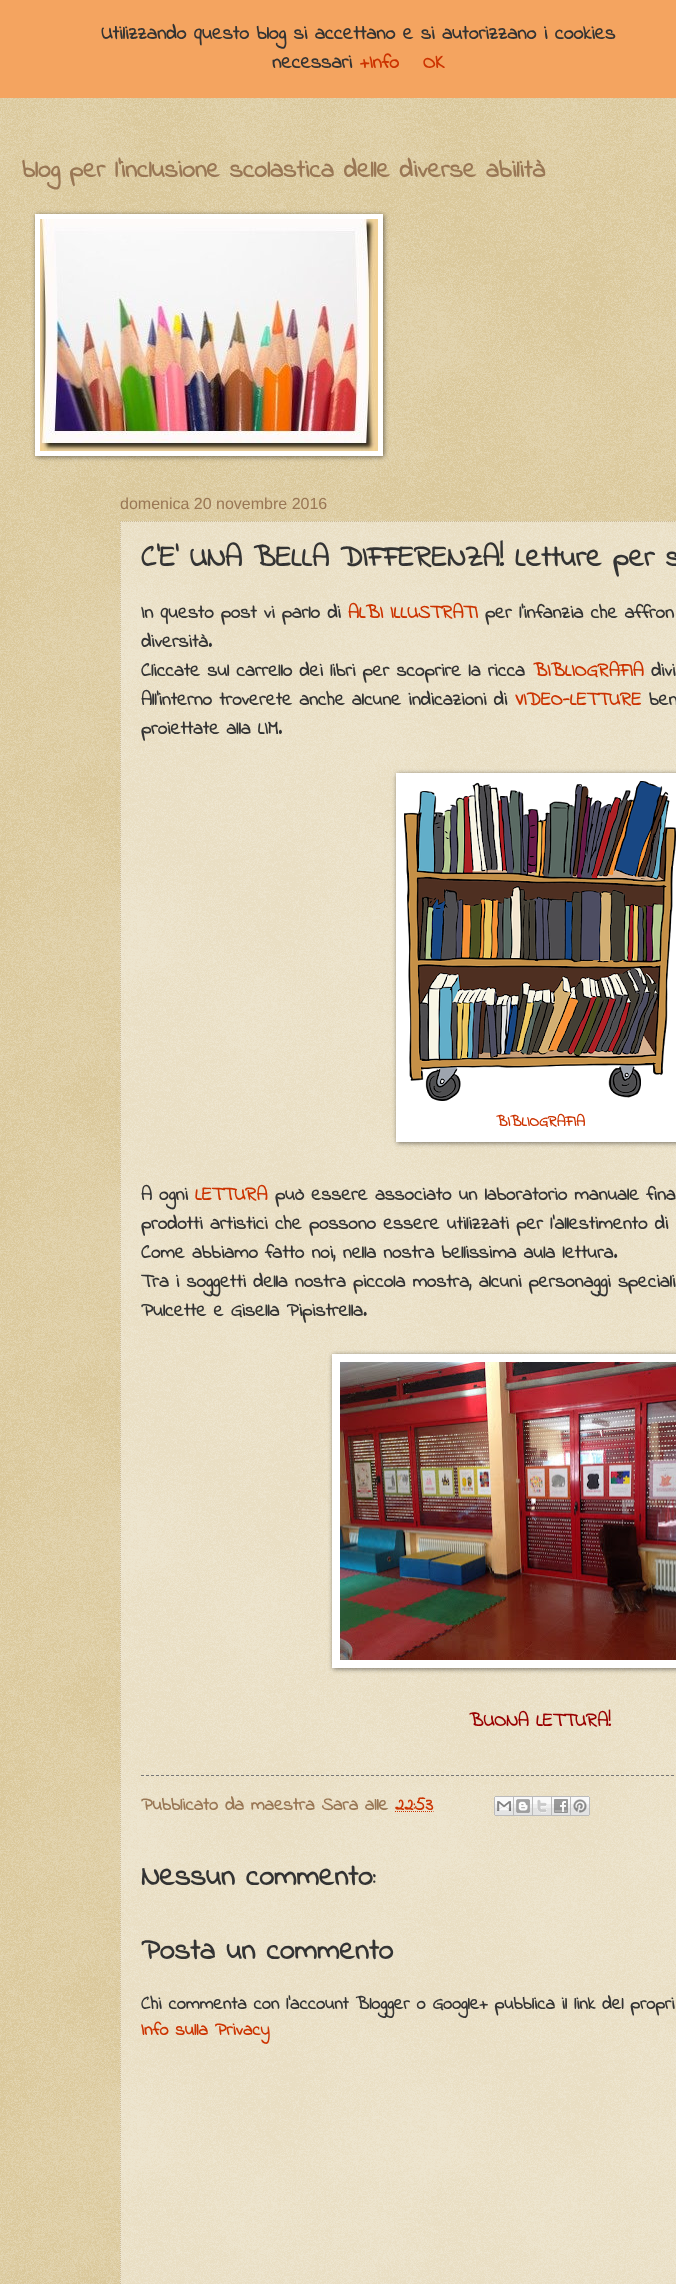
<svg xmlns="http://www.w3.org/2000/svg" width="676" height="2284">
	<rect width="100%" height="100%" fill="#C0A154" />
	<image x="0" y="98" width="676" height="2186" href="assets/img1.png" />
	<rect x="0" y="0" width="676" height="98" fill="#F4A460" />
	<g font-family="Indie Flower" font-size="20" font-weight="700" fill="#333333">
		<text x="101" y="39">Utilizzando questo blog si accettano e si autorizzano i cookies</text>
		<text x="272" y="68">necessari</text>
	</g>
	<g font-family="Indie Flower" font-size="20" font-weight="700" fill="#CC3300">
		<text x="360" y="68">+Info</text>
		<text x="423" y="68">OK</text>
	</g>
	<text x="22" y="177" font-family="Indie Flower" font-size="25.75" font-weight="700" fill="#997755">blog per l'inclusione scolastica delle diverse abilità</text>
	<rect x="36" y="215" width="348" height="242" fill="#000000" fill-opacity="0.5" filter="blur(2.5px)" />
	<rect x="35" y="214" width="348" height="242" fill="#FFFFFF" />
	<image x="40" y="219" width="338" height="232" href="assets/img2.png" />
	<text x="120" y="509" font-family="Liberation Sans" font-size="16" fill="#997755">domenica 20 novembre 2016</text>
	<rect x="120" y="521" width="556" height="1763" fill="#FFFFFF" fill-opacity="0.4" />
	<path d="M120 521.5H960" fill="none" stroke="#CCBB99" stroke-dasharray="1 1" />
	<path d="M120.5 521V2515" fill="none" stroke="#CCBB99" stroke-dasharray="1 1" />
	<text x="141" y="566" font-family="Indie Flower" font-size="30" font-weight="700" fill="#333333">C'E' UNA BELLA DIFFERENZA! Letture per s</text>
	<text x="141" y="618" font-family="Indie Flower" font-size="19.3" font-weight="700" fill="#333333">In questo post vi parlo di</text>
	<text x="348" y="618" font-family="Indie Flower" font-size="19.3" font-weight="700" fill="#CC3300">ALBI ILLUSTRATI</text>
	<g font-family="Indie Flower" font-size="19.3" font-weight="700" fill="#333333">
		<text x="485" y="618">per l'infanzia che affron</text>
		<text x="141" y="647">diversità.</text>
		<text x="141" y="676">Cliccate sul carrello dei libri per scoprire la ricca</text>
	</g>
	<text x="533" y="676" font-family="Indie Flower" font-size="19.3" font-weight="700" fill="#CC3300">BIBLIOGRAFIA</text>
	<g font-family="Indie Flower" font-size="19.3" font-weight="700" fill="#333333">
		<text x="651" y="676">divi</text>
		<text x="141" y="705">All'interno troverete anche alcune indicazioni di</text>
	</g>
	<text x="515" y="705" font-family="Indie Flower" font-size="19.3" font-weight="700" fill="#CC3300">VIDEO-LETTURE</text>
	<g font-family="Indie Flower" font-size="19.3" font-weight="700" fill="#333333">
		<text x="649" y="705">ben</text>
		<text x="141" y="734">proiettate alla LIM.</text>
	</g>
	<rect x="397" y="774" width="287" height="369" fill="#000000" fill-opacity="0.5" filter="blur(2.5px)" />
	<rect x="396" y="773" width="280" height="369" fill="#FFFFFF" />
	<image x="404" y="781" width="272" height="320" href="assets/img3.png" />
	<text x="496" y="1126" font-family="Indie Flower" font-size="15.5" font-weight="700" fill="#CC3300">BIBLIOGRAFIA</text>
	<text x="141" y="1200" font-family="Indie Flower" font-size="19.3" font-weight="700" fill="#333333">A ogni</text>
	<text x="195" y="1200" font-family="Indie Flower" font-size="19.3" font-weight="700" fill="#CC3300">LETTURA</text>
	<g font-family="Indie Flower" font-size="19.3" font-weight="700" fill="#333333">
		<text x="275" y="1200">può essere associato un laboratorio manuale fina</text>
		<text x="141" y="1229">prodotti artistici che possono essere utilizzati per l'allestimento di</text>
		<text x="141" y="1258">Come abbiamo fatto noi, nella nostra bellissima aula lettura.</text>
		<text x="141" y="1287">Tra i soggetti della nostra piccola mostra, alcuni personaggi speciali</text>
		<text x="141" y="1316">Pulcette e Gisella Pipistrella.</text>
	</g>
	<rect x="333" y="1355" width="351" height="314" fill="#000000" fill-opacity="0.5" filter="blur(2.5px)" />
	<rect x="332" y="1354" width="344" height="314" fill="#FFFFFF" />
	<image x="340" y="1362" width="336" height="298" href="assets/img4.png" />
	<text x="469" y="1726" font-family="Indie Flower" font-size="19.3" font-weight="700" fill="#990000">BUONA LETTURA!</text>
	<path d="M141 1775.5H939" fill="none" stroke="#777777" stroke-dasharray="3 2" />
	<text x="141" y="1810" font-family="Indie Flower" font-size="18.4" font-weight="700" fill="#997755">Pubblicato da maestra Sara alle</text>
	<text x="395" y="1810" font-family="Indie Flower" font-size="18.4" font-weight="700" fill="#CC3300">22:53</text>
	<path d="M395 1811.5H433.5" fill="none" stroke="#CC3300" stroke-dasharray="1 1" />
	<image x="494" y="1796" width="20" height="20" href="assets/img5.png" />
	<image x="514" y="1796" width="19" height="20" href="assets/img6.png" />
	<image x="533" y="1796" width="19" height="20" href="assets/img7.png" />
	<image x="552" y="1796" width="19" height="20" href="assets/img8.png" />
	<image x="571" y="1796" width="19" height="20" href="assets/img9.png" />
	<g font-family="Indie Flower" font-size="30" font-weight="700" fill="#333333">
		<text x="141" y="1885">Nessun commento:</text>
		<text x="141" y="1959">Posta un commento</text>
	</g>
	<text x="141" y="2009" font-family="Indie Flower" font-size="18.4" font-weight="700" fill="#333333">Chi commenta con l'account Blogger o Google+ pubblica il link del propri</text>
	<text x="141" y="2035" font-family="Indie Flower" font-size="18.4" font-weight="700" fill="#CC3300">Info sulla Privacy</text>
</svg>
